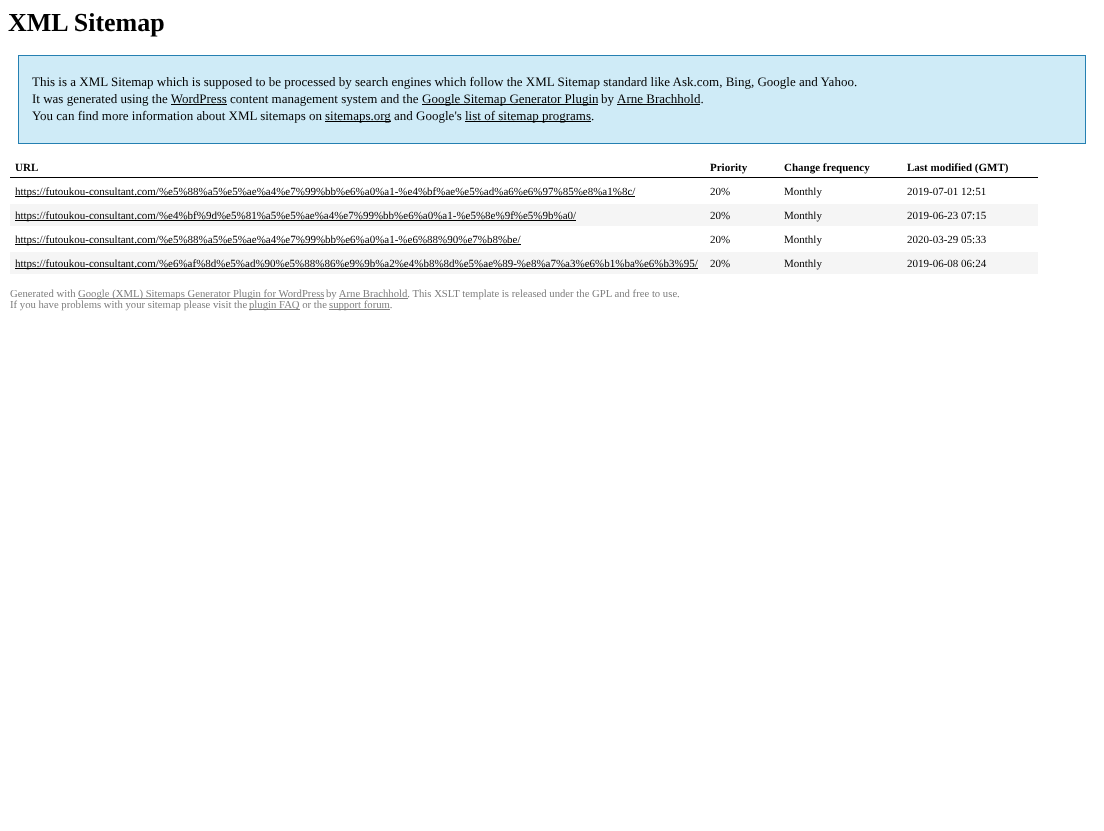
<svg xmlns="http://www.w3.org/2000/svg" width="1104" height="831">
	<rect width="100%" height="100%" fill="#FFFFFF" />
	<text x="8" y="31" font-family="Liberation Serif" font-size="26" font-weight="700" fill="#000000">XML Sitemap</text>
	<rect x="18.5" y="55.5" width="1067" height="88" fill="#CFEBF7" stroke="#2580B2" />
	<g font-family="Liberation Serif" font-size="13" fill="#000000">
		<text x="32" y="86">This is a XML Sitemap which is supposed to be processed by search engines which follow the XML Sitemap standard like Ask.com, Bing, Google and Yahoo.</text>
		<text x="32" y="103">It was generated using the WordPress content management system and the</text>
	</g>
	<rect x="422" y="104" width="176" height="1" fill="#000000" />
	<g font-family="Liberation Serif" font-size="13" fill="#000000">
		<text x="422" y="103">Google Sitemap Generator Plugin</text>
		<text x="601" y="103">by</text>
		<text x="617" y="103">Arne Brachhold.</text>
	</g>
	<rect x="617" y="104" width="83" height="1" fill="#000000" />
	<rect x="171" y="104" width="56" height="1" fill="#000000" />
	<text x="32" y="120" font-family="Liberation Serif" font-size="13" fill="#000000">You can find more information about XML sitemaps on</text>
	<rect x="325" y="121" width="66" height="1" fill="#000000" />
	<text x="325" y="120" font-family="Liberation Serif" font-size="13" fill="#000000">sitemaps.org and Google's</text>
	<rect x="465" y="121" width="126" height="1" fill="#000000" />
	<text x="465" y="120" font-family="Liberation Serif" font-size="13" fill="#000000">list of sitemap programs.</text>
	<rect x="10" y="177" width="1028" height="1" fill="#000000" />
	<g font-family="Liberation Serif" font-size="11" font-weight="700" fill="#000000">
		<text x="15" y="171">URL</text>
		<text x="710" y="171">Priority</text>
		<text x="784" y="171">Change frequency</text>
		<text x="907" y="171">Last modified (GMT)</text>
	</g>
	<rect x="15" y="196" width="620" height="1" fill="#000000" />
	<g font-family="Liberation Serif" font-size="11" fill="#000000">
		<text x="15" y="195">https://futoukou-consultant.com/%e5%88%a5%e5%ae%a4%e7%99%bb%e6%a0%a1-%e4%bf%ae%e5%ad%a6%e6%97%85%e8%a1%8c/</text>
		<text x="710" y="195">20%</text>
		<text x="784" y="195">Monthly</text>
		<text x="907" y="195">2019-07-01 12:51</text>
	</g>
	<rect x="10" y="204" width="1028" height="22" fill="#F5F5F5" />
	<rect x="15" y="220" width="561" height="1" fill="#000000" />
	<g font-family="Liberation Serif" font-size="11" fill="#000000">
		<text x="15" y="219">https://futoukou-consultant.com/%e4%bf%9d%e5%81%a5%e5%ae%a4%e7%99%bb%e6%a0%a1-%e5%8e%9f%e5%9b%a0/</text>
		<text x="710" y="219">20%</text>
		<text x="784" y="219">Monthly</text>
		<text x="907" y="219">2019-06-23 07:15</text>
	</g>
	<rect x="15" y="244" width="506" height="1" fill="#000000" />
	<g font-family="Liberation Serif" font-size="11" fill="#000000">
		<text x="15" y="243">https://futoukou-consultant.com/%e5%88%a5%e5%ae%a4%e7%99%bb%e6%a0%a1-%e6%88%90%e7%b8%be/</text>
		<text x="710" y="243">20%</text>
		<text x="784" y="243">Monthly</text>
		<text x="907" y="243">2020-03-29 05:33</text>
	</g>
	<rect x="10" y="252" width="1028" height="22" fill="#F5F5F5" />
	<rect x="15" y="268" width="683" height="1" fill="#000000" />
	<g font-family="Liberation Serif" font-size="11" fill="#000000">
		<text x="15" y="267">https://futoukou-consultant.com/%e6%af%8d%e5%ad%90%e5%88%86%e9%9b%a2%e4%b8%8d%e5%ae%89-%e8%a7%a3%e6%b1%ba%e6%b3%95/</text>
		<text x="710" y="267">20%</text>
		<text x="784" y="267">Monthly</text>
		<text x="907" y="267">2019-06-08 06:24</text>
	</g>
	<text x="10" y="297" font-family="Liberation Serif" font-size="10.7" fill="#808080">Generated with</text>
	<rect x="78" y="298" width="246" height="1" fill="#808080" />
	<g font-family="Liberation Serif" font-size="10.7" fill="#808080">
		<text x="78" y="297">Google (XML) Sitemaps Generator Plugin for WordPress</text>
		<text x="326" y="297">by Arne Brachhold. This XSLT template is released under the GPL and free to use.</text>
	</g>
	<rect x="339" y="298" width="69" height="1" fill="#808080" />
	<text x="10" y="308" font-family="Liberation Serif" font-size="10.7" fill="#808080">If you have problems with your sitemap please visit the</text>
	<rect x="249" y="309" width="51" height="1" fill="#808080" />
	<text x="249" y="308" font-family="Liberation Serif" font-size="10.7" fill="#808080">plugin FAQ or the</text>
	<rect x="329" y="309" width="61" height="1" fill="#808080" />
	<text x="329" y="308" font-family="Liberation Serif" font-size="10.7" fill="#808080">support forum.</text>
</svg>
